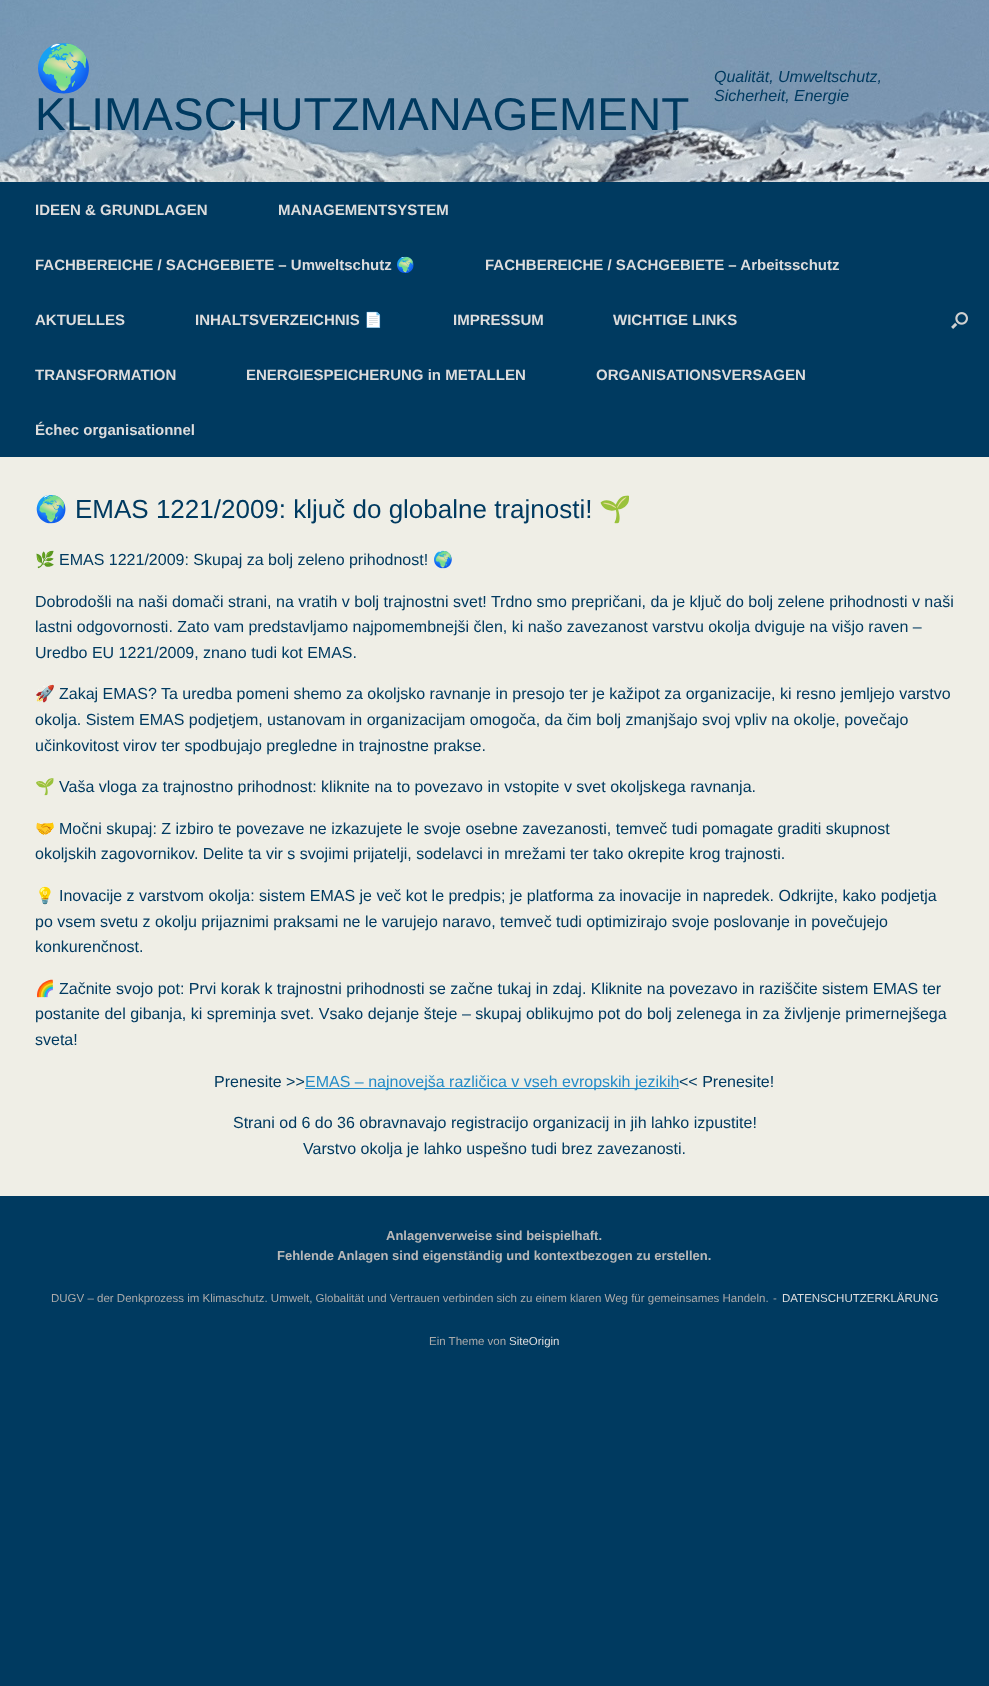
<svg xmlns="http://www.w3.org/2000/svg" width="989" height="1686">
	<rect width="100%" height="100%" fill="#003A60" />
	<image x="0" y="0" width="989" height="182" href="assets/img1.png" />
	<text x="35" y="84" font-family="Noto Color Emoji" font-size="46" fill="#003A60">🌍</text>
	<text x="35" y="130" font-family="Liberation Sans" font-size="46" fill="#003A60">KLIMASCHUTZMANAGEMENT</text>
	<g font-family="Liberation Sans" font-size="16" font-style="italic" fill="#003A60">
		<text x="714" y="82">Qualität, Umweltschutz,</text>
		<text x="714" y="101">Sicherheit, Energie</text>
	</g>
	<g font-family="Liberation Sans" font-size="15" font-weight="700" fill="#DDDDDD">
		<text x="35" y="215">IDEEN &amp; GRUNDLAGEN</text>
		<text x="278" y="215">MANAGEMENTSYSTEM</text>
		<text x="35" y="270">FACHBEREICHE / SACHGEBIETE – Umweltschutz</text>
	</g>
	<text x="396" y="270" font-family="Noto Color Emoji" font-size="15" font-weight="700" fill="#DDDDDD">🌍</text>
	<g font-family="Liberation Sans" font-size="15" font-weight="700" fill="#DDDDDD">
		<text x="485" y="270">FACHBEREICHE / SACHGEBIETE – Arbeitsschutz</text>
		<text x="35" y="325">AKTUELLES</text>
		<text x="195" y="325">INHALTSVERZEICHNIS</text>
	</g>
	<text x="364" y="325" font-family="Noto Color Emoji" font-size="15" font-weight="700" fill="#DDDDDD">📄</text>
	<g font-family="Liberation Sans" font-size="15" font-weight="700" fill="#DDDDDD">
		<text x="453" y="325">IMPRESSUM</text>
		<text x="613" y="325">WICHTIGE LINKS</text>
		<text x="35" y="380">TRANSFORMATION</text>
		<text x="246" y="380">ENERGIESPEICHERUNG in METALLEN</text>
		<text x="596" y="380">ORGANISATIONSVERSAGEN</text>
		<text x="35" y="435">Échec organisationnel</text>
	</g>
	<image x="951" y="312" width="17" height="17" href="assets/img2.png" />
	<rect x="0" y="457" width="989" height="739" fill="#EFEEE6" />
	<text x="35" y="518" font-family="Noto Color Emoji" font-size="26" fill="#003A60">🌍</text>
	<text x="75" y="518" font-family="Liberation Sans" font-size="26" fill="#003A60">EMAS 1221/2009: ključ do globalne trajnosti!</text>
	<text x="599" y="518" font-family="Noto Color Emoji" font-size="26" fill="#003A60">🌱</text>
	<text x="35" y="565" font-family="Noto Color Emoji" font-size="16" fill="#003A60">🌿</text>
	<text x="59" y="565" font-family="Liberation Sans" font-size="16" fill="#003A60">EMAS 1221/2009: Skupaj za bolj zeleno prihodnost!</text>
	<text x="433" y="565" font-family="Noto Color Emoji" font-size="16" fill="#003A60">🌍</text>
	<g font-family="Liberation Sans" font-size="16" fill="#003A60">
		<text x="35" y="607">Dobrodošli na naši domači strani, na vratih v bolj trajnostni svet! Trdno smo prepričani, da je ključ do bolj zelene prihodnosti v naši</text>
		<text x="35" y="632">lastni odgovornosti. Zato vam predstavljamo najpomembnejši člen, ki našo zavezanost varstvu okolja dviguje na višjo raven –</text>
		<text x="35" y="658">Uredbo EU 1221/2009, znano tudi kot EMAS.</text>
	</g>
	<text x="35" y="699" font-family="Noto Color Emoji" font-size="16" fill="#003A60">🚀</text>
	<g font-family="Liberation Sans" font-size="16" fill="#003A60">
		<text x="59" y="699">Zakaj EMAS? Ta uredba pomeni shemo za okoljsko ravnanje in presojo ter je kažipot za organizacije, ki resno jemljejo varstvo</text>
		<text x="35" y="725">okolja. Sistem EMAS podjetjem, ustanovam in organizacijam omogoča, da čim bolj zmanjšajo svoj vpliv na okolje, povečajo</text>
		<text x="35" y="751">učinkovitost virov ter spodbujajo pregledne in trajnostne prakse.</text>
	</g>
	<text x="35" y="792" font-family="Noto Color Emoji" font-size="16" fill="#003A60">🌱</text>
	<text x="59" y="792" font-family="Liberation Sans" font-size="16" fill="#003A60">Vaša vloga za trajnostno prihodnost: kliknite na to povezavo in vstopite v svet okoljskega ravnanja.</text>
	<text x="35" y="834" font-family="Noto Color Emoji" font-size="16" fill="#003A60">🤝</text>
	<g font-family="Liberation Sans" font-size="16" fill="#003A60">
		<text x="59" y="834">Močni skupaj: Z izbiro te povezave ne izkazujete le svoje osebne zavezanosti, temveč tudi pomagate graditi skupnost</text>
		<text x="35" y="859">okoljskih zagovornikov. Delite ta vir s svojimi prijatelji, sodelavci in mrežami ter tako okrepite krog trajnosti.</text>
	</g>
	<text x="35" y="901" font-family="Noto Color Emoji" font-size="16" fill="#003A60">💡</text>
	<g font-family="Liberation Sans" font-size="16" fill="#003A60">
		<text x="59" y="901">Inovacije z varstvom okolja: sistem EMAS je več kot le predpis; je platforma za inovacije in napredek. Odkrijte, kako podjetja</text>
		<text x="35" y="927">po vsem svetu z okolju prijaznimi praksami ne le varujejo naravo, temveč tudi optimizirajo svoje poslovanje in povečujejo</text>
		<text x="35" y="952">konkurenčnost.</text>
	</g>
	<text x="35" y="994" font-family="Noto Color Emoji" font-size="16" fill="#003A60">🌈</text>
	<g font-family="Liberation Sans" font-size="16" fill="#003A60">
		<text x="59" y="994">Začnite svojo pot: Prvi korak k trajnostni prihodnosti se začne tukaj in zdaj. Kliknite na povezavo in raziščite sistem EMAS ter</text>
		<text x="35" y="1019">postanite del gibanja, ki spreminja svet. Vsako dejanje šteje – skupaj oblikujmo pot do bolj zelenega in za življenje primernejšega</text>
		<text x="35" y="1045">sveta!</text>
		<text x="214" y="1087">Prenesite &gt;&gt;</text>
	</g>
	<rect x="305" y="1088" width="374" height="1" fill="#248CC8" />
	<text x="305" y="1087" font-family="Liberation Sans" font-size="16" fill="#248CC8">EMAS – najnovejša različica v vseh evropskih jezikih</text>
	<g font-family="Liberation Sans" font-size="16" fill="#003A60">
		<text x="679" y="1087">&lt;&lt; Prenesite!</text>
		<text x="233" y="1128">Strani od 6 do 36 obravnavajo registracijo organizacij in jih lahko izpustite!</text>
		<text x="303" y="1154">Varstvo okolja je lahko uspešno tudi brez zavezanosti.</text>
	</g>
	<g font-family="Liberation Sans" font-size="13" font-weight="700" fill="#B9B9B9">
		<text x="386" y="1240">Anlagenverweise sind beispielhaft.</text>
		<text x="277" y="1260">Fehlende Anlagen sind eigenständig und kontextbezogen zu erstellen.</text>
	</g>
	<g font-family="Liberation Sans" font-size="11.5" fill="#AAAAAA">
		<text x="51" y="1302">DUGV – der Denkprozess im Klimaschutz. Umwelt, Globalität und Vertrauen verbinden sich zu einem klaren Weg für gemeinsames Handeln.</text>
		<text x="773" y="1302">-</text>
	</g>
	<text x="782" y="1302" font-family="Liberation Sans" font-size="11.5" fill="#DDDDDD">DATENSCHUTZERKLÄRUNG</text>
	<text x="429" y="1345" font-family="Liberation Sans" font-size="11.5" fill="#AAAAAA">Ein Theme von</text>
	<text x="509" y="1345" font-family="Liberation Sans" font-size="11.5" fill="#DDDDDD">SiteOrigin</text>
</svg>
